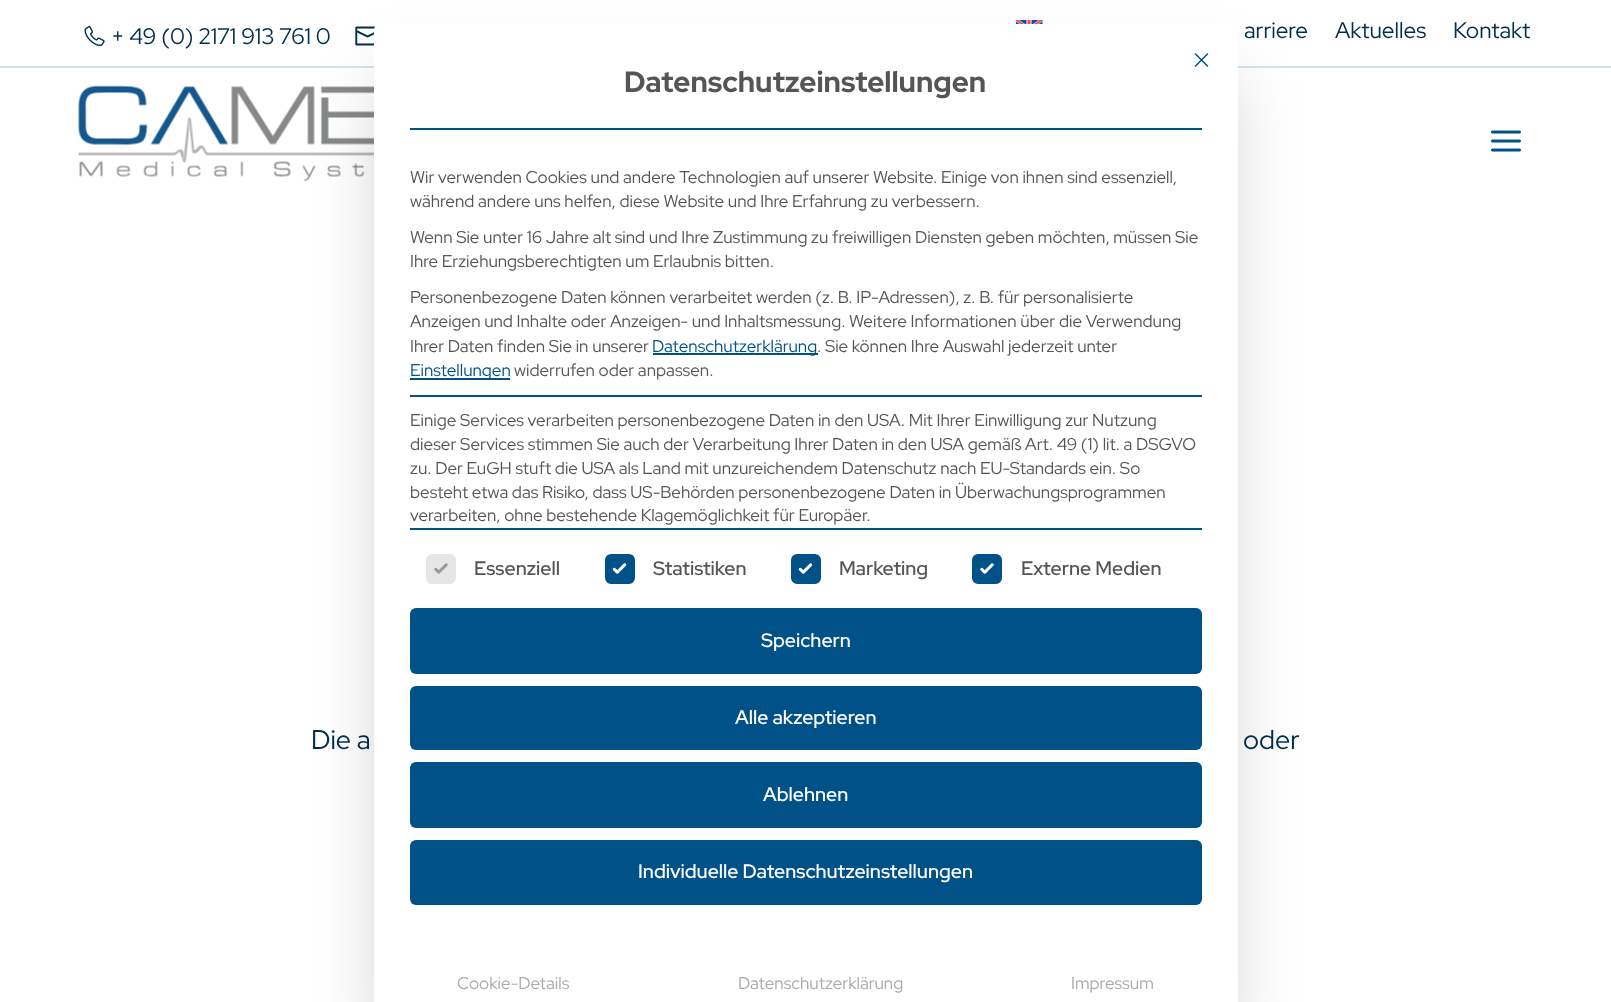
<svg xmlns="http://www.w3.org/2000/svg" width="1611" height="1002">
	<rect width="100%" height="100%" fill="#FFFFFF" />
	<rect x="0" y="66" width="1611" height="2" fill="#D3E3F4" />
	<image x="84" y="25" width="21" height="22" href="assets/img1.png" />
	<text x="111" y="44" font-family="Red Hat Display" font-size="22.5" fill="#002E4D">+ 49 (0) 2171 913 761 0</text>
	<image x="355" y="26" width="21" height="20" href="assets/img2.png" />
	<image x="1016" y="20" width="27" height="4" href="assets/img3.png" />
	<g font-family="Red Hat Display" font-size="22.5" fill="#002E4D">
		<text x="1244" y="38">arriere</text>
		<text x="1335" y="38">Aktuelles</text>
		<text x="1453" y="38">Kontakt</text>
	</g>
	<image x="78" y="85" width="296" height="97" href="assets/img4.png" />
	<image x="1491" y="130" width="30" height="22" href="assets/img5.png" />
	<g font-family="Red Hat Display" font-size="27" fill="#002E4D">
		<text x="311" y="749">Die a</text>
		<text x="1243" y="749">oder</text>
	</g>
	<rect x="392" y="80" width="828" height="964" fill="#000000" fill-opacity="0.25" filter="blur(37.5px)" />
	<path d="M380 24H1232C1235.5 24 1238 26.5 1238 30V1002H374V30C374 26.5 376.5 24 380 24Z" fill="#FFFFFF" />
	<path d="M1195.5 66L1207.5 54M1195.5 54L1207.5 66" fill="none" stroke="#005188" stroke-width="1.5" stroke-linecap="round" stroke-linejoin="round" />
	<rect x="410" y="128" width="792" height="2" fill="#005188" />
	<text x="624" y="92" font-family="Red Hat Display" font-size="29.25" font-weight="700" fill="#555555">Datenschutzeinstellungen</text>
	<g font-family="Red Hat Display" font-size="17.05" fill="#555555">
		<text x="410" y="183">Wir verwenden Cookies und andere Technologien auf unserer Website. Einige von ihnen sind essenziell,</text>
		<text x="410" y="207">während andere uns helfen, diese Website und Ihre Erfahrung zu verbessern.</text>
		<text x="410" y="243">Wenn Sie unter 16 Jahre alt sind und Ihre Zustimmung zu freiwilligen Diensten geben möchten, müssen Sie</text>
		<text x="410" y="267">Ihre Erziehungsberechtigten um Erlaubnis bitten.</text>
		<text x="410" y="303">Personenbezogene Daten können verarbeitet werden (z. B. IP-Adressen), z. B. für personalisierte</text>
		<text x="410" y="327">Anzeigen und Inhalte oder Anzeigen- und Inhaltsmessung. Weitere Informationen über die Verwendung</text>
		<text x="410" y="352">Ihrer Daten finden Sie in unserer</text>
	</g>
	<rect x="653" y="353" width="165" height="2" fill="#005188" />
	<text x="652" y="352" font-family="Red Hat Display" font-size="17.05" fill="#005188">Datenschutzerklärung</text>
	<text x="817" y="352" font-family="Red Hat Display" font-size="17.05" fill="#555555">. Sie können Ihre Auswahl jederzeit unter</text>
	<rect x="410" y="378" width="100" height="2" fill="#005188" />
	<text x="410" y="376" font-family="Red Hat Display" font-size="17.05" fill="#005188">Einstellungen</text>
	<text x="514" y="376" font-family="Red Hat Display" font-size="17.05" fill="#555555">widerrufen oder anpassen.</text>
	<rect x="410" y="395" width="792" height="2" fill="#005188" />
	<rect x="410" y="528" width="792" height="2" fill="#005188" />
	<g font-family="Red Hat Display" font-size="17.05" fill="#555555">
		<text x="410" y="426">Einige Services verarbeiten personenbezogene Daten in den USA. Mit Ihrer Einwilligung zur Nutzung</text>
		<text x="410" y="450">dieser Services stimmen Sie auch der Verarbeitung Ihrer Daten in den USA gemäß Art. 49 (1) lit. a DSGVO</text>
		<text x="410" y="474">zu. Der EuGH stuft die USA als Land mit unzureichendem Datenschutz nach EU-Standards ein. So</text>
		<text x="410" y="498">besteht etwa das Risiko, dass US-Behörden personenbezogene Daten in Überwachungsprogrammen</text>
		<text x="410" y="521">verarbeiten, ohne bestehende Klagemöglichkeit für Europäer.</text>
	</g>
	<rect x="427.5" y="555.5" width="27" height="27" rx="4.5" fill="#E6E6E6" stroke="#E6E6E6" stroke-width="3" />
	<image x="434" y="563" width="14" height="11" href="assets/img6.png" />
	<text x="474" y="575" font-family="Red Hat Display" font-size="19.5" font-weight="600" fill="#555555">Essenziell</text>
	<rect x="606.5" y="555.5" width="27" height="27" rx="4.5" fill="#005188" stroke="#005188" stroke-width="3" />
	<image x="612" y="563" width="15" height="11" href="assets/img7.png" />
	<text x="653" y="575" font-family="Red Hat Display" font-size="19.5" font-weight="600" fill="#555555">Statistiken</text>
	<rect x="792.5" y="555.5" width="27" height="27" rx="4.5" fill="#005188" stroke="#005188" stroke-width="3" />
	<image x="798" y="563" width="15" height="11" href="assets/img7.png" />
	<text x="839" y="575" font-family="Red Hat Display" font-size="19.5" font-weight="600" fill="#555555">Marketing</text>
	<rect x="973.5" y="555.5" width="27" height="27" rx="4.5" fill="#005188" stroke="#005188" stroke-width="3" />
	<image x="980" y="563" width="14" height="11" href="assets/img8.png" />
	<text x="1021" y="575" font-family="Red Hat Display" font-size="19.5" font-weight="600" fill="#555555">Externe Medien</text>
	<rect x="410" y="608" width="792" height="66" rx="6" fill="#005188" />
	<text x="761" y="647" font-family="Red Hat Display" font-size="19.5" font-weight="600" fill="#FFFFFF">Speichern</text>
	<rect x="410" y="686" width="792" height="64" rx="6" fill="#005188" />
	<text x="735" y="724" font-family="Red Hat Display" font-size="19.5" font-weight="600" fill="#FFFFFF">Alle akzeptieren</text>
	<rect x="410" y="762" width="792" height="66" rx="6" fill="#005188" />
	<text x="763" y="801" font-family="Red Hat Display" font-size="19.5" font-weight="600" fill="#FFFFFF">Ablehnen</text>
	<rect x="410" y="840" width="792" height="65" rx="6" fill="#005188" />
	<text x="638" y="878" font-family="Red Hat Display" font-size="19.5" font-weight="600" fill="#FFFFFF">Individuelle Datenschutzeinstellungen</text>
	<g font-family="Red Hat Display" font-size="17.05" fill="#AAAAAA">
		<text x="457" y="989">Cookie-Details</text>
		<text x="738" y="989">Datenschutzerklärung</text>
		<text x="1071" y="989">Impressum</text>
	</g>
</svg>
